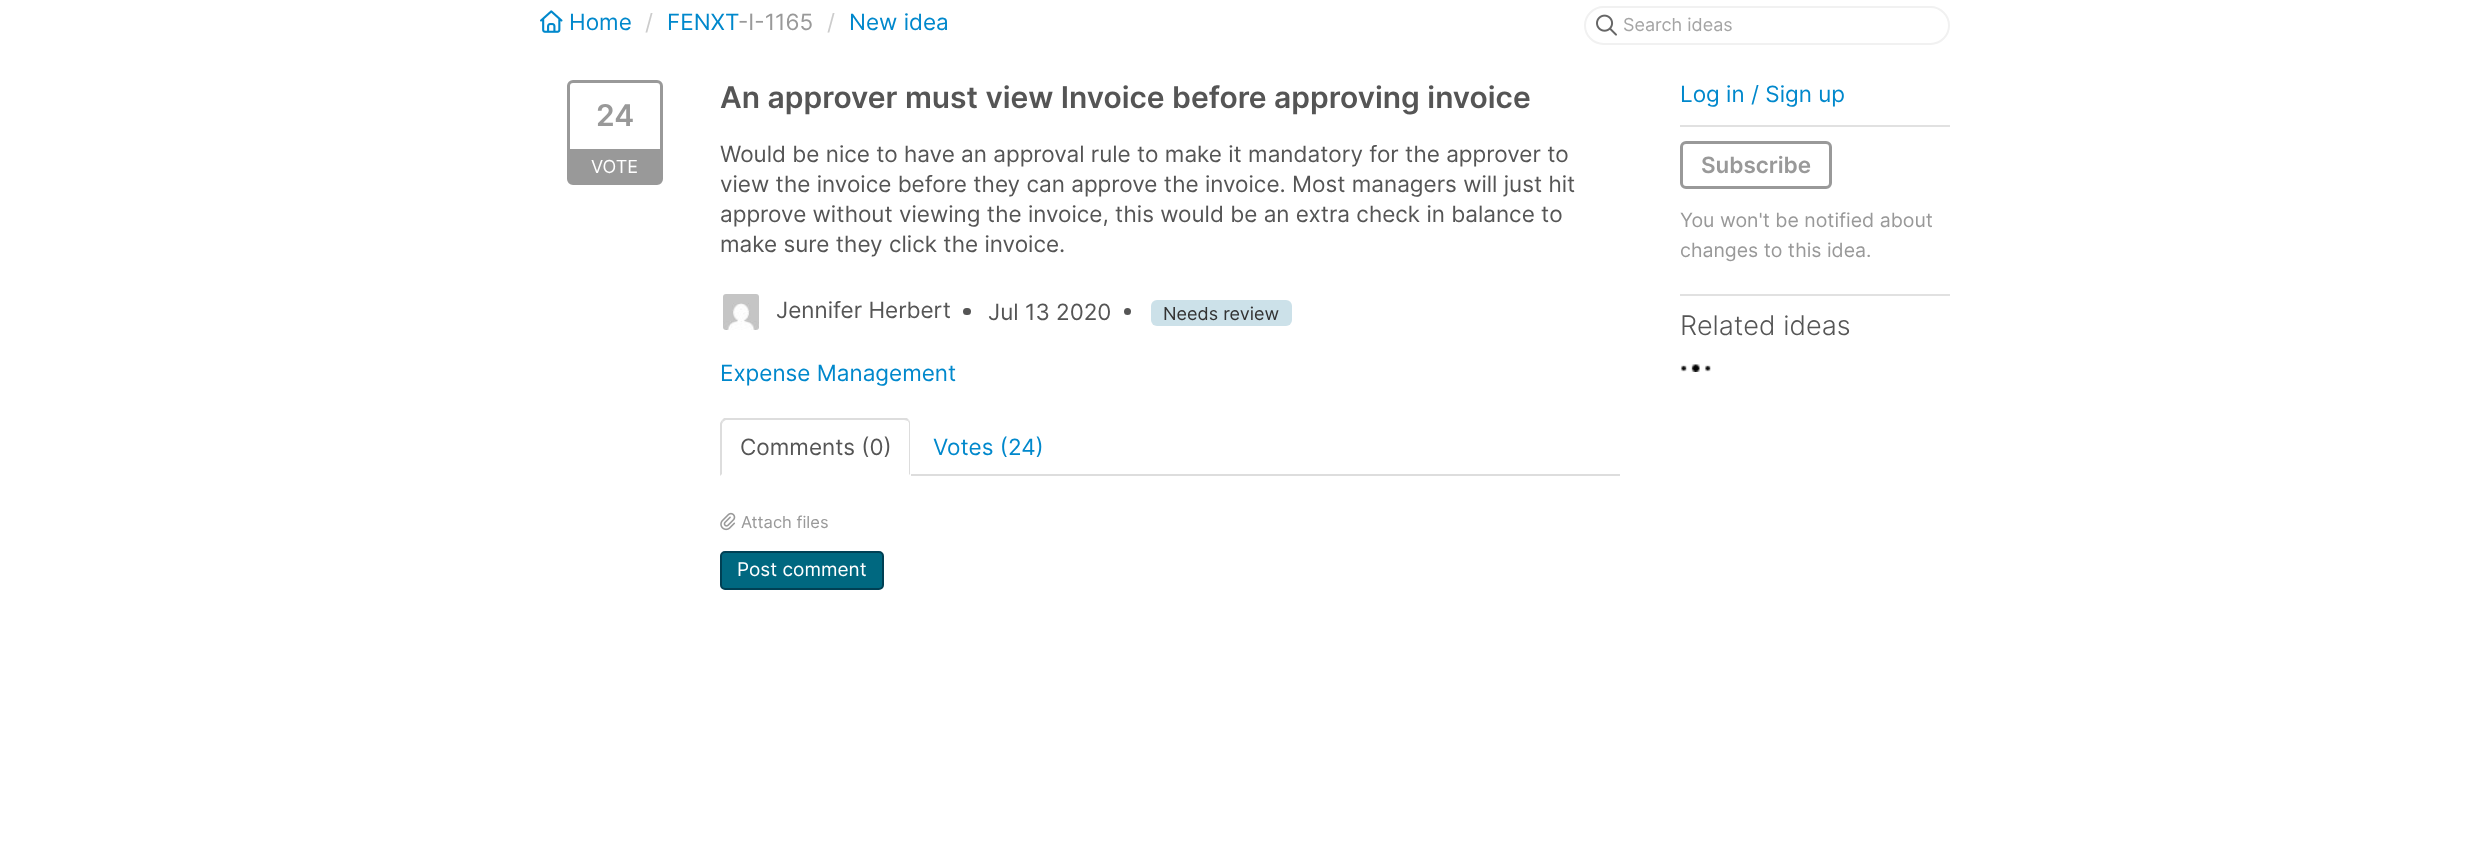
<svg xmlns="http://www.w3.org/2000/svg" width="2490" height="849">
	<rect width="100%" height="100%" fill="#FFFFFF" />
	<image x="540" y="10" width="23" height="23" href="assets/img1.png" />
	<text x="569" y="30" font-family="Inter" font-size="22.5" fill="#0088CC">Home</text>
	<text x="645" y="30" font-family="Inter" font-size="22.5" fill="#CCCCCC">/</text>
	<text x="667" y="30" font-family="Inter" font-size="22.5" fill="#0088CC">FENXT</text>
	<text x="738" y="30" font-family="Inter" font-size="22.5" fill="#999999">-I-1165</text>
	<text x="827" y="30" font-family="Inter" font-size="22.5" fill="#CCCCCC">/</text>
	<text x="849" y="30" font-family="Inter" font-size="22.5" fill="#0088CC">New idea</text>
	<rect x="1585" y="7" width="364" height="37" rx="18.5" fill="none" stroke="#F1F1F1" stroke-width="2" />
	<image x="1596" y="14" width="21" height="22" href="assets/img2.png" />
	<text x="1623" y="31" font-family="Inter" font-size="18" fill="#A5A5A5">Search ideas</text>
	<rect x="568.5" y="81.5" width="93" height="102" rx="4.5" fill="none" stroke="#999999" stroke-width="3" />
	<text x="596" y="126" font-family="Inter" font-size="30" font-weight="600" fill="#999999">24</text>
	<rect x="570" y="149" width="90" height="33" fill="#999999" />
	<text x="591" y="173" font-family="Inter" font-size="18" fill="#FFFFFF">VOTE</text>
	<text x="720" y="108" font-family="Inter" font-size="30" font-weight="600" fill="#555555">An approver must view Invoice before approving invoice</text>
	<g font-family="Inter" font-size="22.5" fill="#555555">
		<text x="720" y="162">Would be nice to have an approval rule to make it mandatory for the approver to</text>
		<text x="720" y="192">view the invoice before they can approve the invoice. Most managers will just hit</text>
		<text x="720" y="222">approve without viewing the invoice, this would be an extra check in balance to</text>
		<text x="720" y="252">make sure they click the invoice.</text>
	</g>
	<image x="723" y="294" width="36" height="36" href="assets/img3.png" />
	<text x="776" y="318" font-family="Inter" font-size="22.5" fill="#555555">Jennifer Herbert</text>
	<rect x="963" y="308" width="8" height="7" rx="3.5" fill="#555555" />
	<text x="988" y="320" font-family="Inter" font-size="22.5" fill="#555555">Jul 13 2020</text>
	<circle cx="1127.5" cy="311.5" r="3.5" fill="#555555" />
	<rect x="1151" y="300" width="141" height="26" rx="6" fill="#CCE1E9" />
	<text x="1163" y="320" font-family="Inter" font-size="18" fill="#333333">Needs review</text>
	<text x="720" y="381" font-family="Inter" font-size="22.5" fill="#0088CC">Expense Management</text>
	<rect x="911" y="474" width="709" height="2" fill="#DDDDDD" />
	<path d="M726 420C725 420 724 421 723 422L722 420L724 418H907L909 420L908 421C907 421 906 420 904 420Z" fill="#DDDDDD" />
	<path d="M909 420C910 421 910 423 910 424V475L909 474V423L908 421Z" fill="#DDDDDD" />
	<path d="M720 476L722 474V424L723 422L722 420C721 421 720 423 720 424Z" fill="#DDDDDD" />
	<text x="740" y="455" font-family="Inter" font-size="22.5" fill="#555555">Comments (0)</text>
	<text x="933" y="455" font-family="Inter" font-size="22.5" fill="#0088CC">Votes (24)</text>
	<image x="720" y="512" width="16" height="19" href="assets/img4.png" />
	<text x="741" y="528" font-family="Inter" font-size="16.5" fill="#999999">Attach files</text>
	<rect x="721" y="552" width="162" height="37" rx="4" fill="#006880" stroke="#004054" stroke-width="2" />
	<text x="737" y="576" font-family="Inter" font-size="19" fill="#FFFFFF">Post comment</text>
	<rect x="1680" y="125" width="270" height="2" fill="#E1E1E1" />
	<text x="1680" y="102" font-family="Inter" font-size="22.5" fill="#0088CC">Log in / Sign up</text>
	<rect x="1680" y="294" width="270" height="2" fill="#E1E1E1" />
	<rect x="1681.5" y="142.5" width="149" height="45" rx="4.5" fill="none" stroke="#999999" stroke-width="3" />
	<text x="1701" y="173" font-family="Inter" font-size="22.5" font-weight="600" fill="#999999">Subscribe</text>
	<g font-family="Inter" font-size="19.5" fill="#999999">
		<text x="1680" y="227">You won't be notified about</text>
		<text x="1680" y="257">changes to this idea.</text>
	</g>
	<text x="1680" y="335" font-family="Inter" font-size="27" font-weight="300" fill="#555555">Related ideas</text>
	<image x="1680" y="364" width="31" height="8" href="assets/img5.png" />
</svg>
